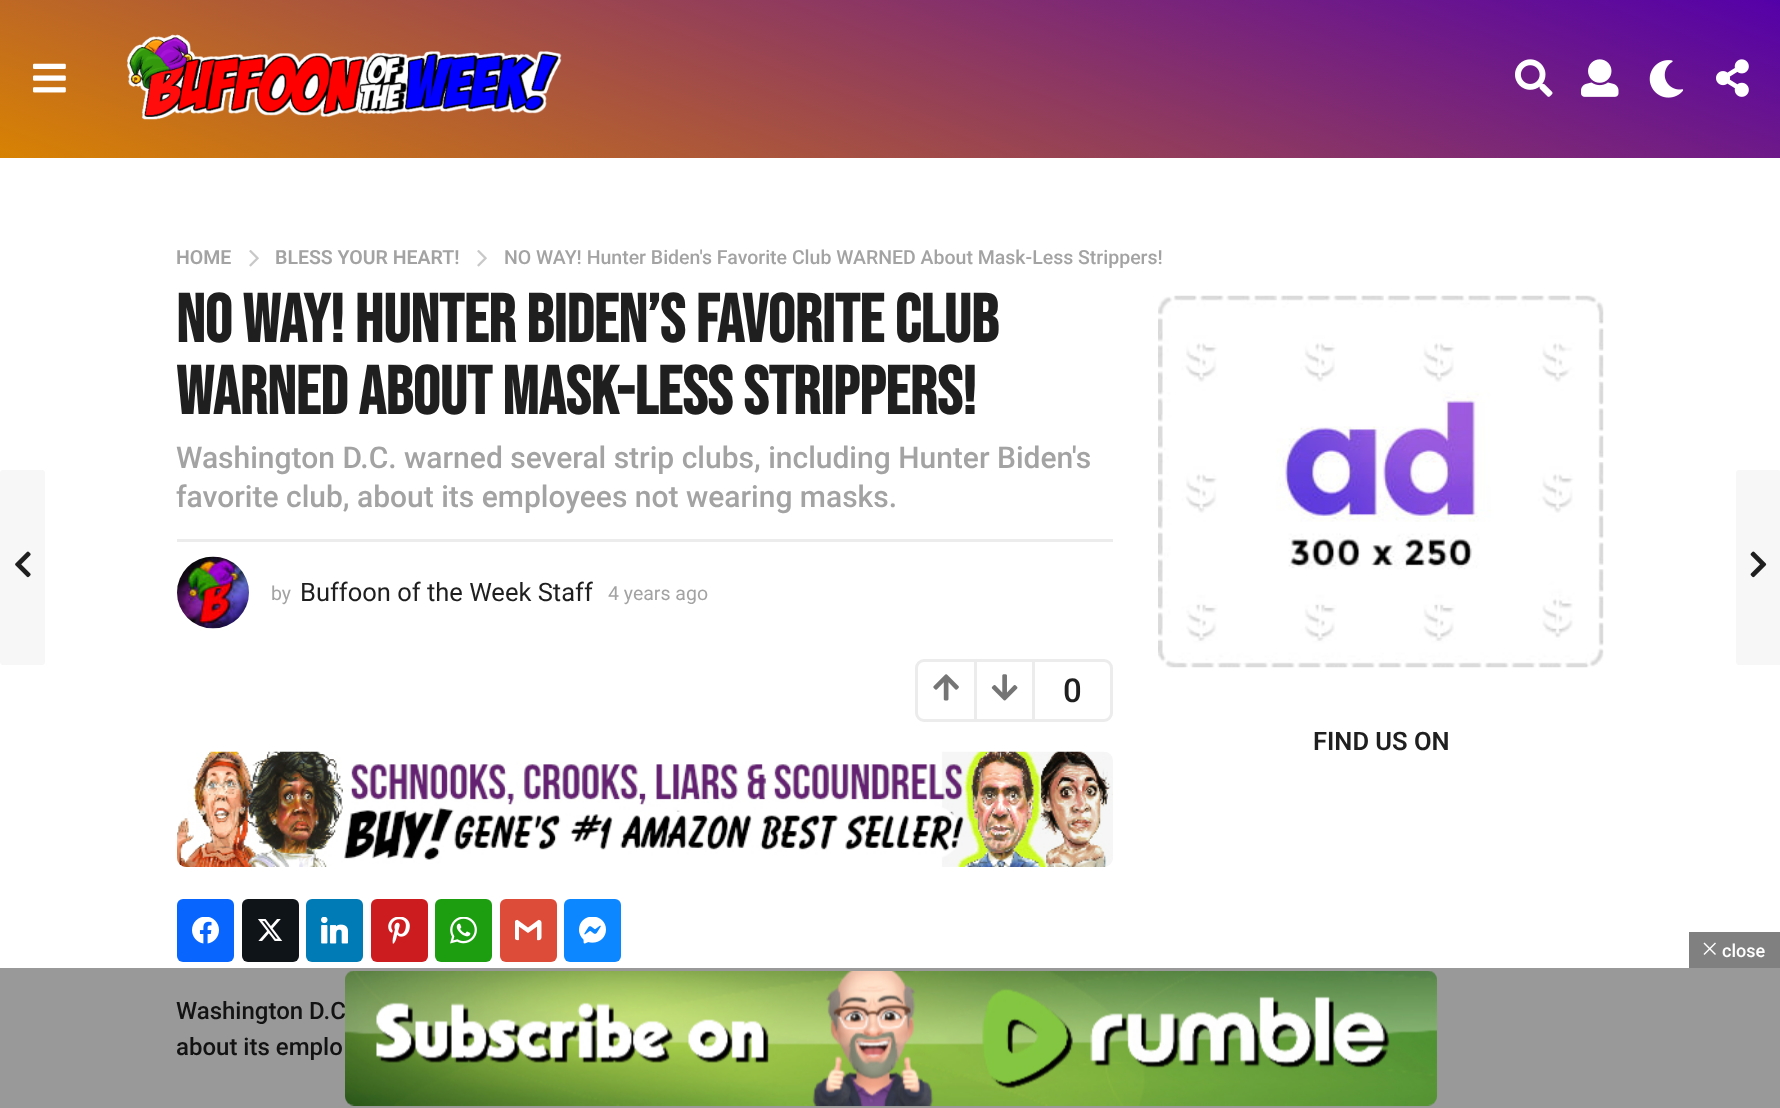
<svg xmlns="http://www.w3.org/2000/svg" width="1780" height="1108">
	<defs>
		<linearGradient id="g1" gradientUnits="userSpaceOnUse" x1="761" y1="434" x2="1020" y2="-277"><stop offset="0" stop-color="#D88203" /><stop offset="1" stop-color="#5400A9" /></linearGradient>
	</defs>
	<rect width="100%" height="100%" fill="#FFFFFF" />
	<rect x="0" y="968" width="1780" height="140" fill="#999999" />
	<rect x="0" y="0" width="1780" height="158" fill="url(#g1)" />
	<image x="33" y="63" width="33" height="30" href="assets/img1.png" />
	<image x="127" y="34" width="435" height="86" href="assets/img2.png" />
	<image x="1515" y="59" width="38" height="38" href="assets/img3.png" />
	<image x="1581" y="59" width="38" height="38" href="assets/img4.png" />
	<image x="1649" y="60" width="35" height="38" href="assets/img5.png" />
	<image x="1716" y="59" width="33" height="38" href="assets/img6.png" />
	<text x="176" y="264" font-family="Roboto" font-size="19.5" font-weight="600" fill="#A3A3A3">HOME</text>
	<image x="249" y="250" width="10" height="17" href="assets/img7.png" />
	<text x="275" y="264" font-family="Roboto" font-size="19.5" font-weight="600" fill="#A3A3A3">BLESS YOUR HEART!</text>
	<image x="477" y="250" width="10" height="17" href="assets/img7.png" />
	<text x="504" y="264" font-family="Roboto" font-size="19.5" font-weight="500" fill="#A3A3A3">NO WAY! Hunter Biden's Favorite Club WARNED About Mask-Less Strippers!</text>
	<g font-family="Bebas Neue" font-size="67.5" font-weight="700" fill="#1F1F1F">
		<text x="176" y="342">NO WAY! Hunter Biden’s Favorite Club</text>
		<text x="176" y="414">WARNED About Mask-Less Strippers!</text>
	</g>
	<g font-family="Roboto" font-size="30" font-weight="500" fill="#A3A3A3">
		<text x="176" y="468">Washington D.C. warned several strip clubs, including Hunter Biden's</text>
		<text x="176" y="507">favorite club, about its employees not wearing masks.</text>
	</g>
	<rect x="177" y="539" width="936" height="3" fill="#ECECEC" />
	<image x="177" y="556" width="72" height="73" href="assets/img8.png" />
	<text x="271" y="600" font-family="Roboto" font-size="19.5" fill="#A3A3A3">by</text>
	<text x="300" y="601" font-family="Roboto" font-size="25.5" fill="#1F1F1F">Buffoon of the Week Staff</text>
	<text x="608" y="600" font-family="Roboto" font-size="19.5" fill="#A3A3A3">4 years ago</text>
	<rect x="916.5" y="660.5" width="195" height="60" rx="7.5" fill="none" stroke="#ECECEC" stroke-width="3" />
	<rect x="974" y="662" width="3" height="57" fill="#ECECEC" />
	<image x="933" y="674" width="26" height="27" href="assets/img9.png" />
	<rect x="1032" y="662" width="3" height="57" fill="#ECECEC" />
	<image x="991" y="674" width="27" height="27" href="assets/img10.png" />
	<text x="1063" y="702" font-family="Roboto" font-size="33" font-weight="500" fill="#1F1F1F">0</text>
	<image x="177" y="751" width="936" height="116" href="assets/img11.png" />
	<rect x="177" y="899" width="57" height="63" rx="6" fill="#0866FF" />
	<image x="192" y="917" width="27" height="27" href="assets/img12.png" />
	<rect x="242" y="899" width="57" height="63" rx="6" fill="#0F1419" />
	<image x="258" y="919" width="25" height="22" href="assets/img13.png" />
	<rect x="306" y="899" width="57" height="63" rx="6" fill="#007BB6" />
	<image x="321" y="917" width="27" height="27" href="assets/img14.png" />
	<rect x="371" y="899" width="57" height="63" rx="6" fill="#CD1C1F" />
	<image x="388" y="917" width="22" height="27" href="assets/img15.png" />
	<rect x="435" y="899" width="57" height="63" rx="6" fill="#1D9E11" />
	<image x="450" y="917" width="27" height="27" href="assets/img16.png" />
	<rect x="500" y="899" width="57" height="63" rx="6" fill="#DD4B39" />
	<image x="515" y="919" width="27" height="22" href="assets/img17.png" />
	<rect x="564" y="899" width="57" height="63" rx="6" fill="#0D87FF" />
	<image x="579" y="917" width="27" height="27" href="assets/img18.png" />
	<g font-family="Roboto" font-size="24" font-weight="500" fill="#131313">
		<text x="176" y="1019">Washington D.C</text>
		<text x="176" y="1055">about its emplo</text>
	</g>
	<image x="1158" y="295" width="446" height="373" href="assets/img19.png" />
	<text x="1313" y="750" font-family="Roboto" font-size="25.5" font-weight="600" fill="#1F1F1F">FIND US ON</text>
	<rect x="0" y="470" width="45" height="195" rx="3" fill="#F7F7F7" />
	<image x="15" y="551" width="16" height="27" href="assets/img20.png" />
	<rect x="1736" y="470" width="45" height="195" rx="3" fill="#F7F7F7" />
	<image x="1750" y="551" width="17" height="27" href="assets/img21.png" />
	<rect x="1689" y="932" width="91" height="36" fill="#808080" />
	<path d="M1704.5 942.5L1716 954L1715 955L1703.5 943.5Z" fill="#FFFFFF" />
	<path d="M1715 942.5L1716 943.5L1704.5 955L1703.5 954Z" fill="#FFFFFF" />
	<text x="1722" y="957" font-family="Roboto" font-size="18" font-weight="500" fill="#FFFFFF">close</text>
	<image x="345" y="971" width="1092" height="135" href="assets/img22.png" />
</svg>
